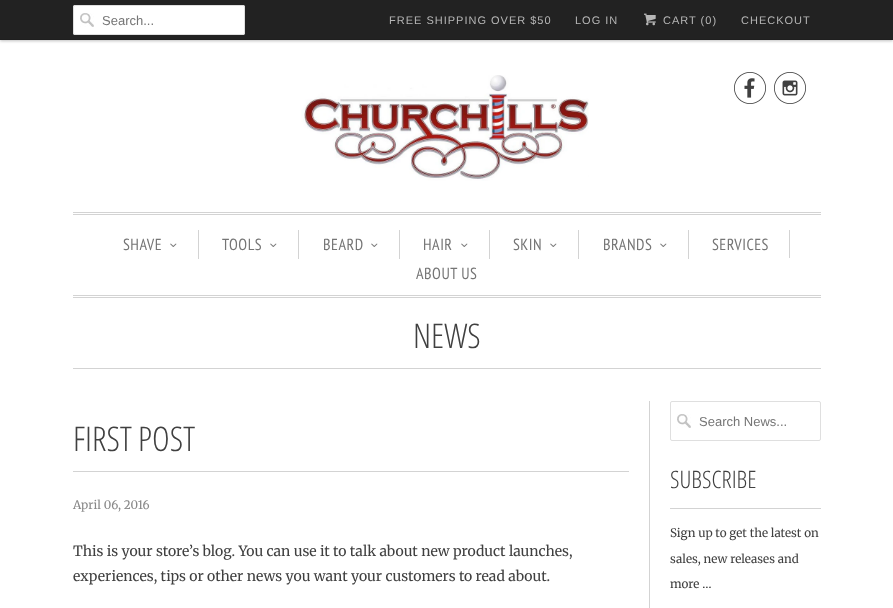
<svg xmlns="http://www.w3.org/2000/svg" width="893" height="608">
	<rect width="100%" height="100%" fill="#FFFFFF" />
	<rect x="0" y="1" width="893" height="40" fill="#000000" fill-opacity="0.25" filter="blur(1.5px)" />
	<rect x="0" y="0" width="893" height="39" fill="#222222" />
	<rect x="0" y="39" width="893" height="1" fill="#1F1F1F" />
	<rect x="73" y="5" width="172" height="30" rx="2" fill="#FFFFFF" />
	<image x="80" y="13" width="14" height="14" href="assets/img1.png" />
	<rect x="73.5" y="5.5" width="171" height="29" rx="1.5" fill="none" stroke="#DFDFDF" />
	<text x="102" y="25" font-family="Liberation Sans" font-size="13" fill="#757575">Search...</text>
	<g font-family="Liberation Sans" font-size="11" letter-spacing="1" fill="#B6B6B6">
		<text x="389" y="24">FREE SHIPPING OVER $50</text>
		<text x="575" y="24">LOG IN</text>
	</g>
	<image x="644" y="13" width="12" height="13" href="assets/img2.png" />
	<g font-family="Liberation Sans" font-size="11" letter-spacing="1" fill="#B6B6B6">
		<text x="663" y="24">CART (0)</text>
		<text x="741" y="24">CHECKOUT</text>
	</g>
	<image x="301" y="75" width="288" height="106" href="assets/img3.png" />
	<image x="734" y="72" width="32" height="32" href="assets/img4.png" />
	<image x="774" y="72" width="32" height="32" href="assets/img5.png" />
	<rect x="73" y="212" width="748" height="1" fill="#D3D3D3" />
	<rect x="73" y="214" width="748" height="1" fill="#D3D3D3" />
	<rect x="73" y="295" width="748" height="1" fill="#D3D3D3" />
	<rect x="73" y="297" width="748" height="1" fill="#D3D3D3" />
	<rect x="198" y="230" width="1" height="29" fill="#D3D3D3" />
	<text x="123" y="250" font-family="PT Sans Narrow" font-size="16" letter-spacing="0.5" fill="#757575">SHAVE</text>
	<image x="170" y="243" width="7" height="4" href="assets/img6.png" />
	<rect x="298" y="230" width="1" height="29" fill="#D3D3D3" />
	<text x="222" y="250" font-family="PT Sans Narrow" font-size="16" letter-spacing="0.5" fill="#757575">TOOLS</text>
	<image x="270" y="243" width="7" height="4" href="assets/img6.png" />
	<rect x="399" y="230" width="1" height="29" fill="#D3D3D3" />
	<text x="323" y="250" font-family="PT Sans Narrow" font-size="16" letter-spacing="0.5" fill="#757575">BEARD</text>
	<image x="371" y="243" width="7" height="4" href="assets/img6.png" />
	<rect x="489" y="230" width="1" height="29" fill="#D3D3D3" />
	<text x="423" y="250" font-family="PT Sans Narrow" font-size="16" letter-spacing="0.5" fill="#757575">HAIR</text>
	<image x="461" y="243" width="7" height="4" href="assets/img6.png" />
	<rect x="578" y="230" width="1" height="29" fill="#D3D3D3" />
	<text x="513" y="250" font-family="PT Sans Narrow" font-size="16" letter-spacing="0.5" fill="#757575">SKIN</text>
	<image x="550" y="243" width="7" height="4" href="assets/img6.png" />
	<rect x="688" y="230" width="1" height="29" fill="#D3D3D3" />
	<text x="603" y="250" font-family="PT Sans Narrow" font-size="16" letter-spacing="0.5" fill="#757575">BRANDS</text>
	<image x="660" y="243" width="7" height="4" href="assets/img6.png" />
	<rect x="789" y="230" width="1" height="28" fill="#D3D3D3" />
	<g font-family="PT Sans Narrow" font-size="16" letter-spacing="0.5" fill="#757575">
		<text x="712" y="250">SERVICES</text>
		<text x="416" y="279">ABOUT US</text>
	</g>
	<rect x="73" y="368" width="748" height="1" fill="#D3D3D3" />
	<text x="413" y="348" font-family="Open Sans Condensed" font-size="34" font-weight="300" fill="#404040">NEWS</text>
	<rect x="73" y="471" width="556" height="1" fill="#D3D3D3" />
	<text x="73" y="451" font-family="Open Sans Condensed" font-size="34" font-weight="300" fill="#404040">FIRST POST</text>
	<text x="73" y="509" font-family="Merriweather" font-size="11.7" fill="#888888">April 06, 2016</text>
	<g font-family="Merriweather" font-size="14" fill="#404040">
		<text x="73" y="556">This is your store’s blog. You can use it to talk about new product launches,</text>
		<text x="73" y="581">experiences, tips or other news you want your customers to read about.</text>
	</g>
	<rect x="649" y="401" width="1" height="207" fill="#D3D3D3" />
	<image x="677" y="414" width="14" height="14" href="assets/img1.png" />
	<rect x="670.5" y="401.5" width="150" height="39" rx="1.5" fill="none" stroke="#DFDFDF" />
	<text x="699" y="426" font-family="Liberation Sans" font-size="13" fill="#757575">Search News...</text>
	<rect x="670" y="508" width="151" height="1" fill="#D3D3D3" />
	<text x="670" y="488" font-family="Open Sans Condensed" font-size="24" font-weight="300" fill="#404040">SUBSCRIBE</text>
	<g font-family="Merriweather" font-size="11.7" fill="#404040">
		<text x="670" y="537">Sign up to get the latest on</text>
		<text x="670" y="563">sales, new releases and</text>
		<text x="670" y="588">more …</text>
	</g>
</svg>
